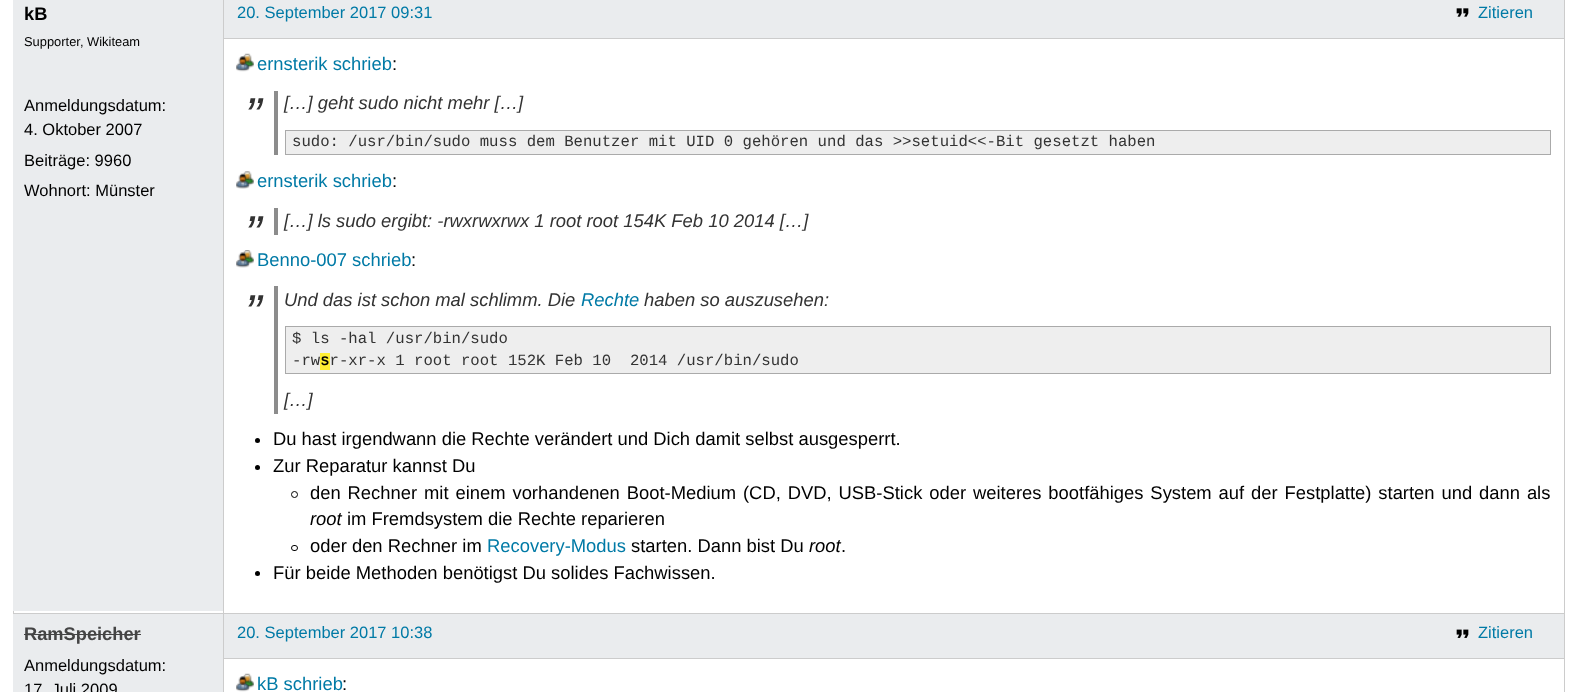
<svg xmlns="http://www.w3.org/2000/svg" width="1577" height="692">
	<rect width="100%" height="100%" fill="#FFFFFF" />
	<rect x="1564" y="0" width="1" height="692" fill="#CCCCCC" />
	<rect x="13" y="611" width="1" height="2" fill="#CCCCCC" />
	<rect x="13" y="0" width="210" height="611" fill="#EAECEE" />
	<text x="24" y="20" font-family="Liberation Sans" font-size="18.25" font-weight="700" fill="#000000">kB</text>
	<text x="24" y="46" font-family="Liberation Sans" font-size="12.9" fill="#000000">Supporter, Wikiteam</text>
	<g font-family="Liberation Sans" font-size="16.5" fill="#000000">
		<text x="24" y="111">Anmeldungsdatum:</text>
		<text x="24" y="135">4. Oktober 2007</text>
		<text x="24" y="166">Beiträge: 9960</text>
		<text x="24" y="196">Wohnort: Münster</text>
	</g>
	<rect x="224" y="0" width="1340" height="38" fill="#EAECEE" />
	<rect x="224" y="38" width="1340" height="1" fill="#CCCCCC" />
	<text x="237" y="18" font-family="Liberation Sans" font-size="16.5" fill="#007AA6">20. September 2017 09:31</text>
	<image x="1456" y="8" width="13" height="9" href="assets/img1.png" />
	<text x="1478" y="18" font-family="Liberation Sans" font-size="16.5" fill="#007AA6">Zitieren</text>
	<image x="236" y="53" width="18" height="19" href="assets/img2.png" />
	<text x="257" y="70" font-family="Liberation Sans" font-size="18.4" fill="#007AA6">ernsterik schrieb</text>
	<text x="392" y="70" font-family="Liberation Sans" font-size="18.4" fill="#000000">:</text>
	<rect x="274" y="91" width="4" height="64" fill="#8C8C8C" />
	<text x="250" y="103" font-family="Liberation Sans" font-size="50" font-style="italic" fill="#333333">„</text>
	<text x="284" y="109" font-family="Liberation Sans" font-size="18.4" font-style="italic" fill="#333333">[…] geht sudo nicht mehr […]</text>
	<rect x="285.5" y="130.5" width="1265" height="24" fill="#EEEEEE" stroke="#AAAAAA" />
	<text x="292" y="146" font-family="Liberation Mono" font-size="15.65" fill="#333333">sudo: /usr/bin/sudo muss dem Benutzer mit UID 0 gehören und das &gt;&gt;setuid&lt;&lt;-Bit gesetzt haben</text>
	<image x="236" y="171" width="18" height="18" href="assets/img3.png" />
	<text x="257" y="187" font-family="Liberation Sans" font-size="18.4" fill="#007AA6">ernsterik schrieb</text>
	<text x="392" y="187" font-family="Liberation Sans" font-size="18.4" fill="#000000">:</text>
	<rect x="274" y="208" width="4" height="27" fill="#8C8C8C" />
	<text x="250" y="221" font-family="Liberation Sans" font-size="50" font-style="italic" fill="#333333">„</text>
	<text x="284" y="227" font-family="Liberation Sans" font-size="18.4" font-style="italic" fill="#333333">[…] ls sudo ergibt: -rwxrwxrwx 1 root root 154K Feb 10 2014 […]</text>
	<image x="236" y="250" width="18" height="18" href="assets/img4.png" />
	<text x="257" y="266" font-family="Liberation Sans" font-size="18.4" fill="#007AA6">Benno-007 schrieb</text>
	<text x="411" y="266" font-family="Liberation Sans" font-size="18.4" fill="#000000">:</text>
	<rect x="274" y="286" width="4" height="128" fill="#8C8C8C" />
	<text x="250" y="300" font-family="Liberation Sans" font-size="50" font-style="italic" fill="#333333">„</text>
	<text x="284" y="306" font-family="Liberation Sans" font-size="18.4" font-style="italic" fill="#333333">Und das ist schon mal schlimm. Die</text>
	<text x="581" y="306" font-family="Liberation Sans" font-size="18.4" font-style="italic" fill="#007AA6">Rechte</text>
	<text x="644" y="306" font-family="Liberation Sans" font-size="18.4" font-style="italic" fill="#333333">haben so auszusehen:</text>
	<rect x="285.5" y="326.5" width="1265" height="47" fill="#EEEEEE" stroke="#AAAAAA" />
	<g font-family="Liberation Mono" font-size="15.65" fill="#333333">
		<text x="292" y="343">$ ls -hal /usr/bin/sudo</text>
		<text x="292" y="365" xml:space="preserve">-rw r-xr-x 1 root root 152K Feb 10  2014 /usr/bin/sudo</text>
	</g>
	<rect x="320" y="353" width="10" height="17" fill="#FFEE33" />
	<text x="320" y="365" font-family="Liberation Mono" font-size="15.65" font-weight="700" fill="#000000">s</text>
	<text x="284" y="406" font-family="Liberation Sans" font-size="18.4" font-style="italic" fill="#333333">[…]</text>
	<circle cx="257.5" cy="440.5" r="2.5" fill="#000000" />
	<text x="273" y="445" font-family="Liberation Sans" font-size="18.4" fill="#000000">Du hast irgendwann die Rechte verändert und Dich damit selbst ausgesperrt.</text>
	<circle cx="257.5" cy="467.5" r="2.5" fill="#000000" />
	<text x="273" y="472" font-family="Liberation Sans" font-size="18.4" fill="#000000">Zur Reparatur kannst Du</text>
	<circle cx="294.5" cy="494.5" r="3" fill="none" stroke="#000000" />
	<text x="310" y="499" word-spacing="1.8" font-family="Liberation Sans" font-size="18.4" fill="#000000">den Rechner mit einem vorhandenen Boot-Medium (CD, DVD, USB-Stick oder weiteres bootfähiges System auf der Festplatte) starten und dann als</text>
	<text x="310" y="525" font-family="Liberation Sans" font-size="18.4" font-style="italic" fill="#000000">root</text>
	<text x="347" y="525" font-family="Liberation Sans" font-size="18.4" fill="#000000">im Fremdsystem die Rechte reparieren</text>
	<rect x="291.5" y="545.5" width="6" height="5" rx="2.5" fill="none" stroke="#000000" />
	<text x="310" y="552" font-family="Liberation Sans" font-size="18.4" fill="#000000">oder den Rechner im</text>
	<text x="487" y="552" font-family="Liberation Sans" font-size="18.4" fill="#007AA6">Recovery-Modus</text>
	<text x="631" y="552" font-family="Liberation Sans" font-size="18.4" fill="#000000">starten. Dann bist Du</text>
	<text x="809" y="552" font-family="Liberation Sans" font-size="18.4" font-style="italic" fill="#000000">root</text>
	<text x="841" y="552" font-family="Liberation Sans" font-size="18.4" fill="#000000">.</text>
	<circle cx="257.5" cy="573.5" r="2.5" fill="#000000" />
	<text x="273" y="579" font-family="Liberation Sans" font-size="18.4" fill="#000000">Für beide Methoden benötigst Du solides Fachwissen.</text>
	<rect x="13" y="613" width="1552" height="1" fill="#CCCCCC" />
	<rect x="223" y="0" width="1" height="692" fill="#CCCCCC" />
	<rect x="13" y="614" width="210" height="78" fill="#EAECEE" />
	<text x="24" y="640" font-family="Liberation Sans" font-size="18.25" font-weight="700" fill="#444444">RamSpeicher</text>
	<rect x="24" y="634" width="117" height="1" fill="#444444" />
	<g font-family="Liberation Sans" font-size="16.5" fill="#000000">
		<text x="24" y="671">Anmeldungsdatum:</text>
		<text x="24" y="695">17. Juli 2009</text>
	</g>
	<rect x="224" y="614" width="1340" height="44" fill="#EAECEE" />
	<rect x="224" y="658" width="1340" height="1" fill="#CCCCCC" />
	<text x="237" y="638" font-family="Liberation Sans" font-size="16.5" fill="#007AA6">20. September 2017 10:38</text>
	<image x="1456" y="629" width="13" height="9" href="assets/img5.png" />
	<text x="1478" y="638" font-family="Liberation Sans" font-size="16.5" fill="#007AA6">Zitieren</text>
	<image x="236" y="673" width="18" height="19" href="assets/img2.png" />
	<text x="257" y="690" font-family="Liberation Sans" font-size="18.4" fill="#007AA6">kB schrieb</text>
	<text x="342" y="690" font-family="Liberation Sans" font-size="18.4" fill="#000000">:</text>
</svg>
